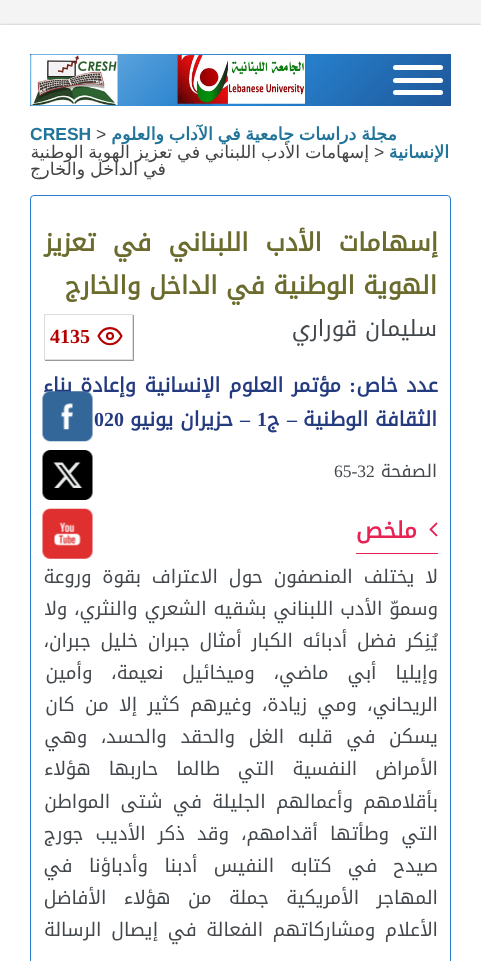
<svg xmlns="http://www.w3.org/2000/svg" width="481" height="961">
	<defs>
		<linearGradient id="g1" gradientUnits="userSpaceOnUse" x1="122" y1="-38" x2="359" y2="198"><stop offset="0" stop-color="#7DB9E8" /><stop offset="0.49" stop-color="#207CCA" /><stop offset="0.5" stop-color="#2989D8" /><stop offset="1" stop-color="#1E5799" /></linearGradient>
		<clipPath id="clip1"><path d="M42 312H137V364H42ZM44 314H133V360H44Z" clip-rule="evenodd" /></clipPath>
	</defs>
	<rect width="100%" height="100%" fill="#F4F4F4" />
	<rect x="0" y="26" width="481" height="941" fill="#000000" fill-opacity="0.12" filter="blur(2px)" />
	<rect x="0" y="25" width="481" height="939" fill="#000000" fill-opacity="0.18" filter="blur(1px)" />
	<rect x="0" y="25" width="481" height="936" fill="#FFFFFF" />
	<rect x="30" y="54" width="421" height="52" fill="#2E63A6" />
	<rect x="30" y="54" width="421" height="52" rx="2.5" fill="url(#g1)" />
	<rect x="393" y="65" width="50" height="5" rx="2.5" fill="#FFFFFF" />
	<rect x="393" y="78" width="50" height="5" rx="2.5" fill="#FFFFFF" />
	<rect x="393" y="90" width="50" height="5" rx="2.5" fill="#FFFFFF" />
	<image x="177" y="55" width="128" height="49" href="assets/img1.png" />
	<image x="31" y="55" width="87" height="50" href="assets/img2.png" />
	<text x="397" y="140" word-spacing="-0.75" font-family="DejaVu Sans" font-size="17.5" font-weight="700" direction="rtl" fill="#21759B">مجلة دراسات جامعية في الآداب والعلوم</text>
	<text x="96" y="140" font-family="Liberation Sans" font-size="17.5" fill="#444444">&gt;</text>
	<text x="30" y="140" font-family="Liberation Sans" font-size="17.5" font-weight="700" fill="#21759B">CRESH</text>
	<text x="449" y="158" font-family="DejaVu Sans" font-size="17.5" font-weight="700" direction="rtl" fill="#21759B">الإنسانية</text>
	<text x="374" y="158" font-family="Liberation Sans" font-size="17.5" fill="#444444">&gt;</text>
	<g font-family="DejaVu Sans" font-size="17.5" direction="rtl" fill="#444444">
		<text x="369" y="158" word-spacing="-0.75">إسهامات الأدب اللبناني في تعزيز الهوية الوطنية</text>
		<text x="166" y="175" word-spacing="-0.75">في الداخل والخارج</text>
	</g>
	<rect x="30.5" y="195.5" width="420" height="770" rx="3.5" fill="none" stroke="#267ECA" />
	<g font-family="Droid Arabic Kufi" font-size="25" font-weight="700" direction="rtl" fill="#6B6B2E">
		<text x="438" y="251" word-spacing="8.5">إسهامات الأدب اللبناني في تعزيز</text>
		<text x="437" y="294">الهوية الوطنية في الداخل والخارج</text>
	</g>
	<g clip-path="url(#clip1)">
		<rect x="45" y="315" width="89" height="46" fill="#999999" filter="blur(0.5px)" />
	</g>
	<rect x="44.5" y="314.5" width="88" height="45" fill="none" stroke="#DDDDDD" />
	<path d="M98.5 336C104 325.5 116 325.5 121.5 336C116 347 104 347 98.5 336Z" fill="none" stroke="#B60000" stroke-width="2.1" stroke-linecap="round" stroke-linejoin="round" />
	<text x="50" y="343" font-family="Liberation Serif" font-size="20" font-weight="700" fill="#B60000">4135</text>
	<circle cx="110" cy="336" r="3" fill="none" stroke="#B60000" stroke-width="2.1" />
	<text x="437" y="336" font-family="Droid Arabic Kufi" font-size="22.5" direction="rtl" fill="#43484D">سليمان قوراري</text>
	<text x="438" y="392" word-spacing="1.5" font-family="Droid Arabic Kufi" font-size="20" font-weight="700" direction="rtl" fill="#253B80">عدد خاص</text>
	<text x="356" y="392" font-family="Liberation Serif" font-size="20" font-weight="700" direction="rtl" fill="#253B80">:</text>
	<g font-family="Droid Arabic Kufi" font-size="20" font-weight="700" direction="rtl" fill="#253B80">
		<text x="341" y="392" word-spacing="1.5">مؤتمر العلوم الإنسانية وإعادة بناء</text>
		<text x="437" y="426">الثقافة الوطنية</text>
	</g>
	<text x="297" y="426" font-family="Liberation Serif" font-size="20" font-weight="700" direction="rtl" fill="#253B80">–</text>
	<text x="280" y="426" font-family="Droid Arabic Kufi" font-size="20" font-weight="700" direction="rtl" fill="#253B80">ج</text>
	<text x="257" y="426" font-family="Liberation Serif" font-size="20" font-weight="700" fill="#253B80">1</text>
	<text x="250" y="426" font-family="Liberation Serif" font-size="20" font-weight="700" direction="rtl" fill="#253B80">–</text>
	<text x="233" y="426" font-family="Droid Arabic Kufi" font-size="20" font-weight="700" direction="rtl" fill="#253B80">حزيران يونيو</text>
	<text x="94" y="426" font-family="Liberation Serif" font-size="20" font-weight="700" fill="#253B80">020</text>
	<text x="437" y="477" font-family="Droid Arabic Kufi" font-size="17.5" direction="rtl" fill="#43484D">الصفحة</text>
	<text x="334" y="477" font-family="Liberation Serif" font-size="17.5" fill="#43484D">65-32</text>
	<rect x="356" y="553" width="82" height="1" fill="#E72354" />
	<image x="429" y="522" width="9" height="15" href="assets/img3.png" />
	<text x="417" y="538" font-family="Droid Arabic Kufi" font-size="22.5" font-weight="700" direction="rtl" fill="#E72354">ملخص</text>
	<g font-family="Droid Arabic Kufi" font-size="18.75" direction="rtl" fill="#43484D">
		<text x="438" y="583" word-spacing="4.5">لا يختلف المنصفون حول الاعتراف بقوة وروعة</text>
		<text x="438" y="615" word-spacing="0.5">وسموّ الأدب اللبناني بشقيه الشعري والنثري، ولا</text>
		<text x="438" y="647" word-spacing="3.25">يُنِكر فضل أدبائه الكبار أمثال جبران خليل جبران،</text>
		<text x="438" y="679" word-spacing="12.5">وإيليا أبي ماضي، وميخائيل نعيمة، وأمين</text>
		<text x="438" y="711" word-spacing="4">الريحاني، ومي زيادة، وغيرهم كثير إلا من كان</text>
		<text x="438" y="743" word-spacing="7.25">يسكن في قلبه الغل والحقد والحسد، وهي</text>
		<text x="438" y="775" word-spacing="11.5">الأمراض النفسية التي طالما حاربها هؤلاء</text>
		<text x="438" y="808" word-spacing="4">بأقلامهم وأعمالهم الجليلة في شتى المواطن</text>
		<text x="438" y="840" word-spacing="5.75">التي وطأتها أقدامهم، وقد ذكر الأديب جورج</text>
		<text x="438" y="872" word-spacing="10">صيدح في كتابه النفيس أدبنا وأدباؤنا في</text>
		<text x="438" y="904" word-spacing="11">المهاجر الأمريكية جملة من هؤلاء الأفاضل</text>
		<text x="438" y="936" word-spacing="3.25">الأعلام ومشاركاتهم الفعالة في إيصال الرسالة</text>
	</g>
	<image x="42" y="391" width="51" height="51" href="assets/img4.png" />
	<image x="42" y="450" width="51" height="50" href="assets/img5.png" />
	<image x="42" y="508" width="51" height="51" href="assets/img6.png" />
</svg>
